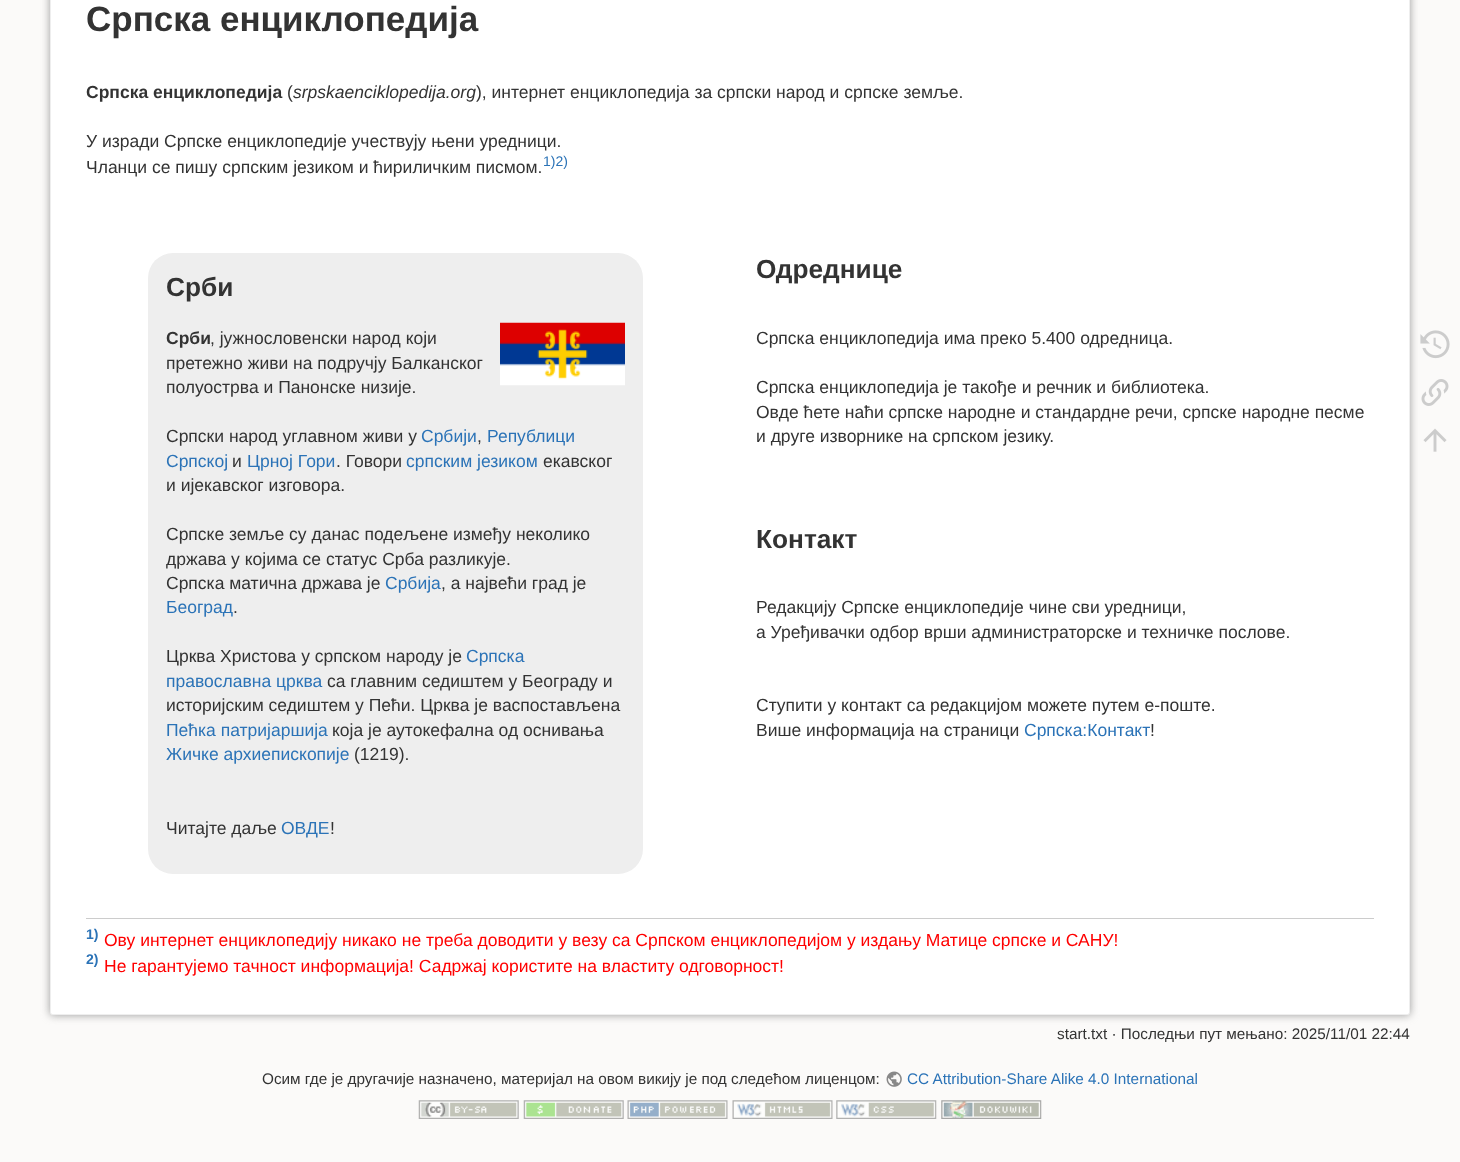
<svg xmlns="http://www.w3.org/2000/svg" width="1460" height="1162">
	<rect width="100%" height="100%" fill="#FBFAF9" />
	<rect x="50" y="-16" width="1360" height="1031" rx="2.5" fill="#999999" filter="blur(4.5px)" />
	<rect x="50.5" y="-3.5" width="1359" height="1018" rx="2" fill="#FFFFFF" stroke="#EEEEEE" />
	<text x="86" y="31" font-family="Liberation Sans" font-size="35" font-weight="700" fill="#333333">Српска енциклопедија</text>
	<text x="86" y="98" font-family="Liberation Sans" font-size="17.5" font-weight="700" fill="#333333">Српска енциклопедија</text>
	<text x="287" y="98" font-family="Liberation Sans" font-size="17.5" fill="#333333">(</text>
	<text x="293" y="98" font-family="Liberation Sans" font-size="17.5" font-style="italic" fill="#333333">srpskaenciklopedija.org</text>
	<g font-family="Liberation Sans" font-size="17.5" fill="#333333">
		<text x="476" y="98">), интернет енциклопедија за српски народ и српске земље.</text>
		<text x="86" y="147">У изради Српске енциклопедије учествују њени уредници.</text>
		<text x="86" y="173">Чланци се пишу српским језиком и ћириличким писмом.</text>
	</g>
	<text x="543" y="166" font-family="Liberation Sans" font-size="14" fill="#2B73B7">1)2)</text>
	<rect x="148" y="253" width="495" height="621" rx="25" fill="#EEEEEE" />
	<text x="166" y="296" font-family="Liberation Sans" font-size="26.25" font-weight="700" fill="#333333">Срби</text>
	<text x="166" y="344" font-family="Liberation Sans" font-size="17.5" font-weight="700" fill="#333333">Срби</text>
	<g font-family="Liberation Sans" font-size="17.5" fill="#333333">
		<text x="210" y="344">, јужнословенски народ који</text>
		<text x="166" y="369">претежно живи на подручју Балканског</text>
		<text x="166" y="393">полуострва и Панонске низије.</text>
	</g>
	<image x="500" y="322" width="125" height="64" href="assets/img1.png" />
	<text x="166" y="442" font-family="Liberation Sans" font-size="17.5" fill="#333333">Српски народ углавном живи у</text>
	<text x="421" y="442" font-family="Liberation Sans" font-size="17.5" fill="#2B73B7">Србији</text>
	<text x="477" y="442" font-family="Liberation Sans" font-size="17.5" fill="#333333">,</text>
	<g font-family="Liberation Sans" font-size="17.5" fill="#2B73B7">
		<text x="487" y="442">Републици</text>
		<text x="166" y="467">Српској</text>
	</g>
	<text x="232" y="467" font-family="Liberation Sans" font-size="17.5" fill="#333333">и</text>
	<text x="247" y="467" font-family="Liberation Sans" font-size="17.5" fill="#2B73B7">Црној Гори</text>
	<text x="336" y="467" font-family="Liberation Sans" font-size="17.5" fill="#333333">. Говори</text>
	<text x="406" y="467" font-family="Liberation Sans" font-size="17.5" fill="#2B73B7">српским језиком</text>
	<g font-family="Liberation Sans" font-size="17.5" fill="#333333">
		<text x="543" y="467">екавског</text>
		<text x="166" y="491">и ијекавског изговора.</text>
		<text x="166" y="540">Српске земље су данас подељене између неколико</text>
		<text x="166" y="565">држава у којима се статус Срба разликује.</text>
		<text x="166" y="589">Српска матична држава је</text>
	</g>
	<text x="385" y="589" font-family="Liberation Sans" font-size="17.5" fill="#2B73B7">Србија</text>
	<text x="441" y="589" font-family="Liberation Sans" font-size="17.5" fill="#333333">, а највећи град је</text>
	<text x="166" y="613" font-family="Liberation Sans" font-size="17.5" fill="#2B73B7">Београд</text>
	<g font-family="Liberation Sans" font-size="17.5" fill="#333333">
		<text x="233" y="613">.</text>
		<text x="166" y="662">Црква Христова у српском народу је</text>
	</g>
	<g font-family="Liberation Sans" font-size="17.5" fill="#2B73B7">
		<text x="466" y="662">Српска</text>
		<text x="166" y="687">православна црква</text>
	</g>
	<g font-family="Liberation Sans" font-size="17.5" fill="#333333">
		<text x="327" y="687">са главним седиштем у Београду и</text>
		<text x="166" y="711">историјским седиштем у Пећи. Црква је васпостављена</text>
	</g>
	<text x="166" y="736" font-family="Liberation Sans" font-size="17.5" fill="#2B73B7">Пећка патријаршија</text>
	<text x="332" y="736" font-family="Liberation Sans" font-size="17.5" fill="#333333">која је аутокефална од оснивања</text>
	<text x="166" y="760" font-family="Liberation Sans" font-size="17.5" fill="#2B73B7">Жичке архиепископије</text>
	<g font-family="Liberation Sans" font-size="17.5" fill="#333333">
		<text x="354" y="760">(1219).</text>
		<text x="166" y="834">Читајте даље</text>
	</g>
	<text x="281" y="834" font-family="Liberation Sans" font-size="17.5" fill="#2B73B7">ОВДЕ</text>
	<text x="330" y="834" font-family="Liberation Sans" font-size="17.5" fill="#333333">!</text>
	<text x="756" y="278" font-family="Liberation Sans" font-size="26.25" font-weight="700" fill="#333333">Одреднице</text>
	<g font-family="Liberation Sans" font-size="17.5" fill="#333333">
		<text x="756" y="344">Српска енциклопедија има преко 5.400 одредница.</text>
		<text x="756" y="393">Српска енциклопедија је такође и речник и библиотека.</text>
		<text x="756" y="418">Овде ћете наћи српске народне и стандардне речи, српске народне песме</text>
		<text x="756" y="442">и друге изворнике на српском језику.</text>
	</g>
	<text x="756" y="548" font-family="Liberation Sans" font-size="26.25" font-weight="700" fill="#333333">Контакт</text>
	<g font-family="Liberation Sans" font-size="17.5" fill="#333333">
		<text x="756" y="613">Редакцију Српске енциклопедије чине сви уредници,</text>
		<text x="756" y="638">а Уређивачки одбор врши администраторске и техничке послове.</text>
		<text x="756" y="711">Ступити у контакт са редакцијом можете путем е-поште.</text>
		<text x="756" y="736">Више информација на страници</text>
	</g>
	<text x="1024" y="736" font-family="Liberation Sans" font-size="17.5" fill="#2B73B7">Српска:Контакт</text>
	<text x="1150" y="736" font-family="Liberation Sans" font-size="17.5" fill="#333333">!</text>
	<rect x="86" y="918" width="1288" height="1" fill="#CCCCCC" />
	<text x="86" y="939" font-family="Liberation Sans" font-size="14" font-weight="700" fill="#2B73B7">1)</text>
	<text x="104" y="946" font-family="Liberation Sans" font-size="17.5" fill="#FF0000">Ову интернет енциклопедију никако не треба доводити у везу са Српском енциклопедијом у издању Матице српске и САНУ!</text>
	<text x="86" y="964" font-family="Liberation Sans" font-size="14" font-weight="700" fill="#2B73B7">2)</text>
	<text x="104" y="972" font-family="Liberation Sans" font-size="17.5" fill="#FF0000">Не гарантујемо тачност информација! Садржај користите на властиту одговорност!</text>
	<text x="1057" y="1039" font-family="Liberation Sans" font-size="15.3" fill="#333333">start.txt · Последњи пут мењано: 2025/11/01 22:44</text>
	<image x="1420" y="330" width="30" height="29" href="assets/img2.png" />
	<image x="1421" y="379" width="28" height="27" href="assets/img3.png" />
	<image x="1423" y="428" width="24" height="24" href="assets/img4.png" />
	<text x="262" y="1084" font-family="Liberation Sans" font-size="15.3" fill="#333333">Осим где је другачије назначено, материјал на овом викију је под следећом лиценцом:</text>
	<image x="886" y="1071" width="16" height="16" href="assets/img5.png" />
	<text x="907" y="1084" font-family="Liberation Sans" font-size="15.3" fill="#2B73B7">CC Attribution-Share Alike 4.0 International</text>
	<image x="418" y="1100" width="101" height="19" href="assets/img6.png" />
	<image x="523" y="1100" width="101" height="19" href="assets/img7.png" />
	<image x="627" y="1100" width="101" height="19" href="assets/img8.png" />
	<image x="732" y="1100" width="101" height="19" href="assets/img9.png" />
	<image x="836" y="1100" width="101" height="19" href="assets/img10.png" />
	<image x="941" y="1100" width="101" height="19" href="assets/img11.png" />
</svg>
